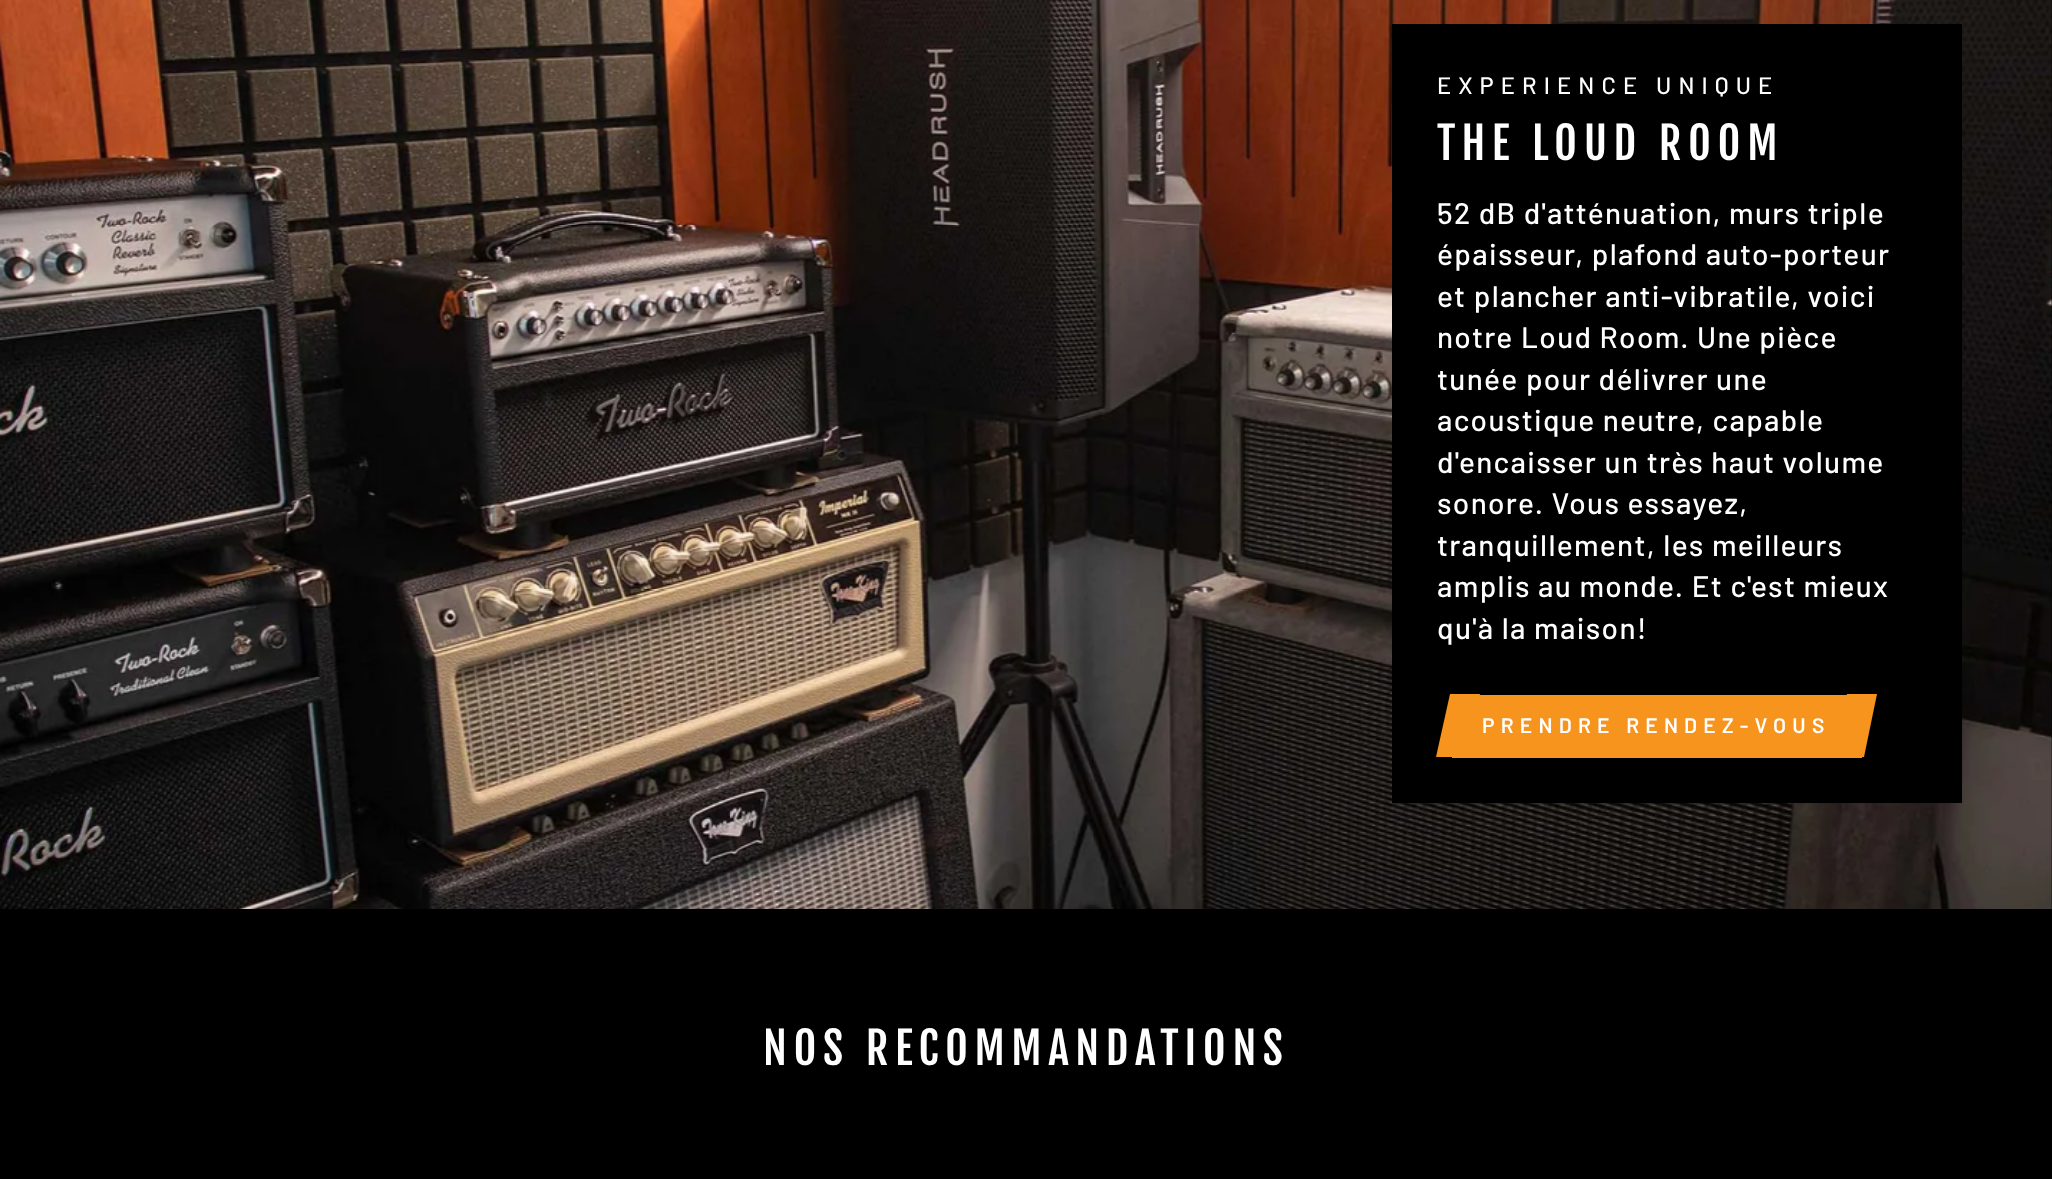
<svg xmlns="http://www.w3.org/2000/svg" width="2052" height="1179">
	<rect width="100%" height="100%" fill="#000000" />
	<image x="0" y="0" width="2052" height="909" href="assets/img1.png" />
	<rect x="1392" y="24" width="570" height="779" fill="#000000" />
	<text x="1437" y="94" font-family="Barlow" font-size="23.75" font-weight="500" letter-spacing="7.1" fill="#FFFFFF">EXPERIENCE UNIQUE</text>
	<text x="1437" y="160" font-family="Fjalla One" font-size="43.9" letter-spacing="6.6" fill="#FFFFFF">THE LOUD ROOM</text>
	<g font-family="Barlow" font-size="29.75" font-weight="500" letter-spacing="1.35" fill="#FFFFFF">
		<text x="1437" y="224">52 dB d'atténuation, murs triple</text>
		<text x="1437" y="265">épaisseur, plafond auto-porteur</text>
		<text x="1437" y="307">et plancher anti-vibratile, voici</text>
		<text x="1437" y="348">notre Loud Room. Une pièce</text>
		<text x="1437" y="390">tunée pour délivrer une</text>
		<text x="1437" y="431">acoustique neutre, capable</text>
		<text x="1437" y="473">d'encaisser un très haut volume</text>
		<text x="1437" y="514">sonore. Vous essayez,</text>
		<text x="1437" y="556">tranquillement, les meilleurs</text>
		<text x="1437" y="597">amplis au monde. Et c'est mieux</text>
		<text x="1437" y="639">qu'à la maison!</text>
	</g>
	<rect x="1452" y="695" width="410" height="63" fill="#F7941D" />
	<path d="M1450 694H1480L1466 757H1436Z" fill="#F7941D" />
	<text x="1482" y="733" font-family="Barlow" font-size="21" font-weight="600" letter-spacing="6.25" fill="#FFFFFF">PRENDRE RENDEZ-VOUS</text>
	<path d="M1847 694H1877L1864 757H1834Z" fill="#F7941D" />
	<text x="763" y="1065" font-family="Fjalla One" font-size="43.9" letter-spacing="6.6" fill="#FFFFFF">NOS RECOMMANDATIONS</text>
</svg>
